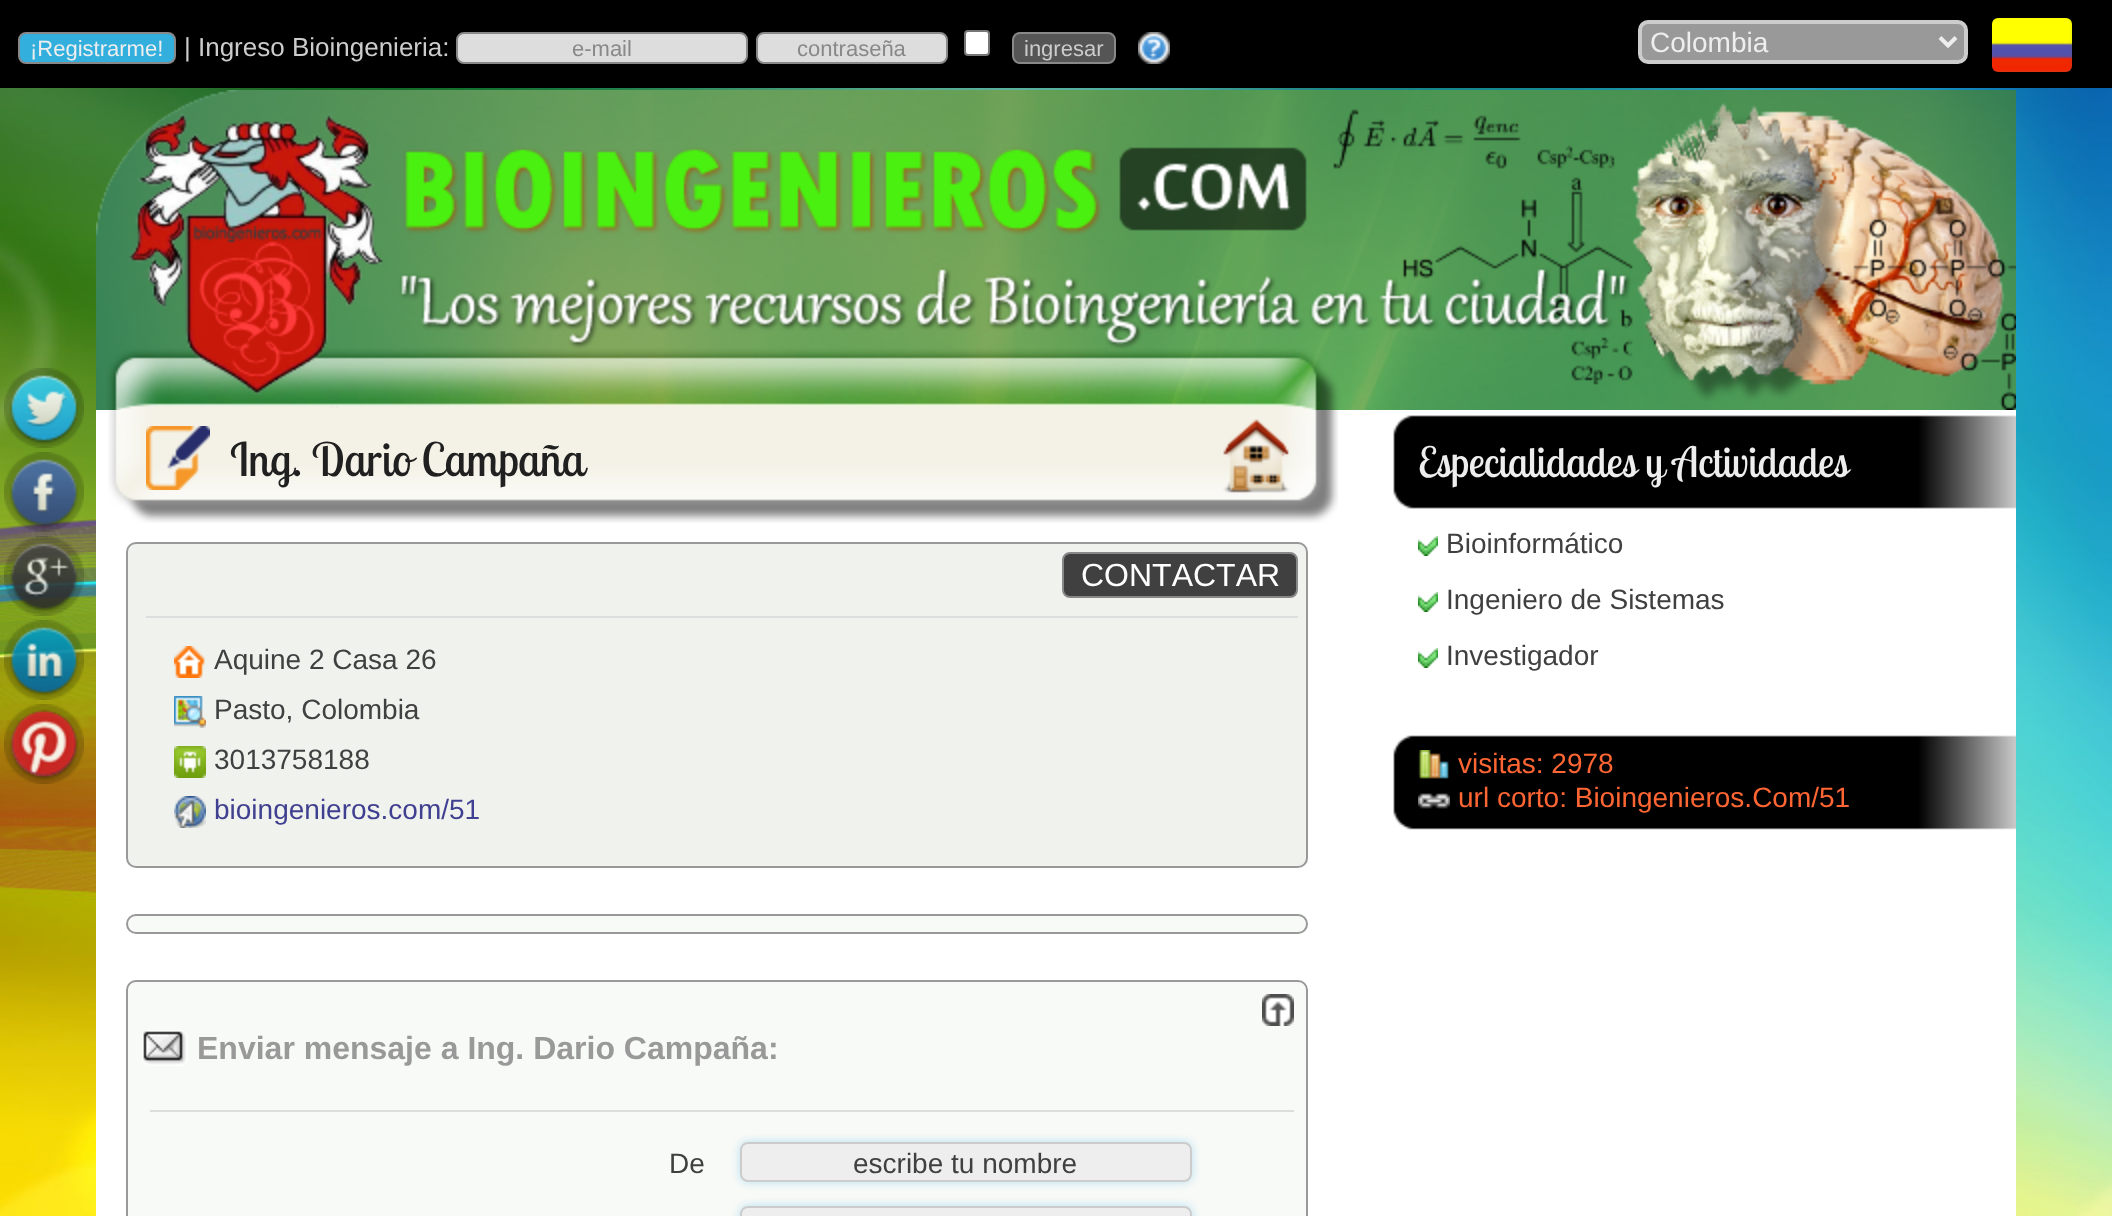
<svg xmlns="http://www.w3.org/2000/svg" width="2112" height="1216">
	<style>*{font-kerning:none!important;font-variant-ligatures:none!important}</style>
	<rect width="100%" height="100%" fill="#FFFFFF" />
	<rect x="0" y="0" width="2112" height="88" fill="#000000" />
	<rect x="19" y="33" width="156" height="30" rx="7" fill="#33AFDD" stroke="#888888" stroke-width="2" />
	<text x="30" y="56" font-family="Liberation Sans" font-size="22" fill="#EEEEEE">¡Registrarme!</text>
	<text x="184" y="56" font-family="Liberation Sans" font-size="26" fill="#CCCCCC">| Ingreso Bioingenieria:</text>
	<rect x="457" y="33" width="290" height="30" rx="7" fill="#DDDDDD" stroke="#888888" stroke-width="2" />
	<text x="572" y="56" font-family="Liberation Sans" font-size="22" fill="#888888">e-mail</text>
	<rect x="757" y="33" width="190" height="30" rx="7" fill="#DDDDDD" stroke="#888888" stroke-width="2" />
	<text x="797" y="56" font-family="Liberation Sans" font-size="22" fill="#888888">contraseña</text>
	<rect x="965" y="31" width="24" height="24" rx="3" fill="#FFFFFF" stroke="#767676" stroke-width="2" />
	<rect x="1013" y="33" width="102" height="30" rx="7" fill="#555555" stroke="#888888" stroke-width="2" />
	<text x="1024" y="56" font-family="Liberation Sans" font-size="22" fill="#CCCCCC">ingresar</text>
	<image x="1138" y="32" width="32" height="32" href="assets/img1.png" />
	<rect x="1640" y="22" width="326" height="40" rx="8" fill="#999999" stroke="#CCCCCC" stroke-width="4" />
	<path d="M1940 37.5L1948 45.5L1956 37.5" fill="none" stroke="#EEEEEE" stroke-width="4" />
	<text x="1650" y="52" font-family="Liberation Sans" font-size="28" fill="#EEEEEE">Colombia</text>
	<image x="1992" y="18" width="80" height="54" href="assets/img2.png" />
	<image x="0" y="88" width="2112" height="1128" href="assets/img3.png" />
	<image x="4" y="368" width="80" height="80" href="assets/img4.png" />
	<image x="4" y="452" width="80" height="80" href="assets/img5.png" />
	<image x="4" y="536" width="80" height="80" href="assets/img6.png" />
	<image x="4" y="620" width="80" height="80" href="assets/img7.png" />
	<image x="4" y="704" width="80" height="80" href="assets/img8.png" />
	<image x="96" y="90" width="1920" height="320" href="assets/img9.png" />
	<rect x="96" y="410" width="1920" height="806" fill="#FFFFFF" />
	<image x="108" y="410" width="1002" height="113" href="assets/img10.png" />
	<image x="146" y="426" width="64" height="64" href="assets/img11.png" />
	<text x="230" y="476" font-family="Lobster Two" font-size="46" fill="#202020">Ing. Dario Campaña</text>
	<image x="1110" y="410" width="228" height="113" href="assets/img12.png" />
	<image x="1393" y="415" width="623" height="94" href="assets/img13.png" />
	<text x="1418" y="477" font-family="Lobster Two" font-size="41.6" fill="#EEEEEE">Especialidades y Actividades</text>
	<rect x="127" y="543" width="1180" height="324" rx="9" fill="#F0F2EE" stroke="#999999" stroke-width="2" />
	<rect x="1063" y="553" width="234" height="44" rx="7" fill="#404040" stroke="#888888" stroke-width="2" />
	<text x="1081" y="586" font-family="Liberation Sans" font-size="32" fill="#FFFFFF">CONTACTAR</text>
	<rect x="146" y="616" width="1152" height="2" fill="#DDDDDD" />
	<image x="174" y="646" width="31" height="32" href="assets/img14.png" />
	<text x="214" y="669" font-family="Liberation Sans" font-size="28" fill="#404040">Aquine 2 Casa 26</text>
	<image x="174" y="696" width="32" height="32" href="assets/img15.png" />
	<text x="214" y="719" font-family="Liberation Sans" font-size="28" fill="#404040">Pasto, Colombia</text>
	<image x="174" y="746" width="32" height="32" href="assets/img16.png" />
	<text x="214" y="769" font-family="Liberation Sans" font-size="28" fill="#404040">3013758188</text>
	<image x="174" y="796" width="32" height="32" href="assets/img17.png" />
	<text x="214" y="819" font-family="Liberation Sans" font-size="28" fill="#404090">bioingenieros.com/51</text>
	<rect x="127" y="915" width="1180" height="18" rx="9" fill="#F8FAF7" stroke="#999999" stroke-width="2" />
	<rect x="127" y="981" width="1180" height="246" rx="9" fill="#F8FAF7" stroke="#999999" stroke-width="2" />
	<image x="1262" y="994" width="32" height="32" href="assets/img18.png" />
	<image x="142" y="1030" width="46" height="36" href="assets/img19.png" />
	<text x="197" y="1059" font-family="Liberation Sans" font-size="32" font-weight="700" fill="#999999">Enviar mensaje a Ing. Dario Campaña:</text>
	<rect x="150" y="1110" width="1144" height="2" fill="#DDDDDD" />
	<text x="669" y="1173" font-family="Liberation Sans" font-size="28" fill="#404040">De</text>
	<rect x="740" y="1142" width="452" height="40" rx="8" fill="#B5DFF1" filter="blur(5px)" />
	<rect x="741" y="1143" width="450" height="38" rx="7" fill="#EEEEEE" stroke="#CCCCCC" stroke-width="2" />
	<text x="853" y="1173" font-family="Liberation Sans" font-size="28" fill="#404040">escribe tu nombre</text>
	<rect x="740" y="1206" width="452" height="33" rx="8" fill="#B5DFF1" filter="blur(5px)" />
	<rect x="741" y="1207" width="450" height="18" rx="7" fill="#EEEEEE" stroke="#CCCCCC" stroke-width="2" />
	<image x="1418" y="536" width="20" height="20" href="assets/img20.png" />
	<text x="1446" y="553" font-family="Liberation Sans" font-size="28" fill="#404040">Bioinformático</text>
	<image x="1418" y="592" width="20" height="20" href="assets/img20.png" />
	<text x="1446" y="609" font-family="Liberation Sans" font-size="28" fill="#404040">Ingeniero de Sistemas</text>
	<image x="1418" y="648" width="20" height="20" href="assets/img20.png" />
	<text x="1446" y="665" font-family="Liberation Sans" font-size="28" fill="#404040">Investigador</text>
	<image x="1393" y="735" width="623" height="95" href="assets/img21.png" />
	<image x="1418" y="750" width="31" height="29" href="assets/img22.png" />
	<text x="1458" y="773" font-family="Liberation Sans" font-size="28" fill="#FF6633">visitas: 2978</text>
	<image x="1418" y="793" width="32" height="16" href="assets/img23.png" />
	<text x="1458" y="807" font-family="Liberation Sans" font-size="28" fill="#FF6633">url corto: Bioingenieros.Com/51</text>
</svg>
